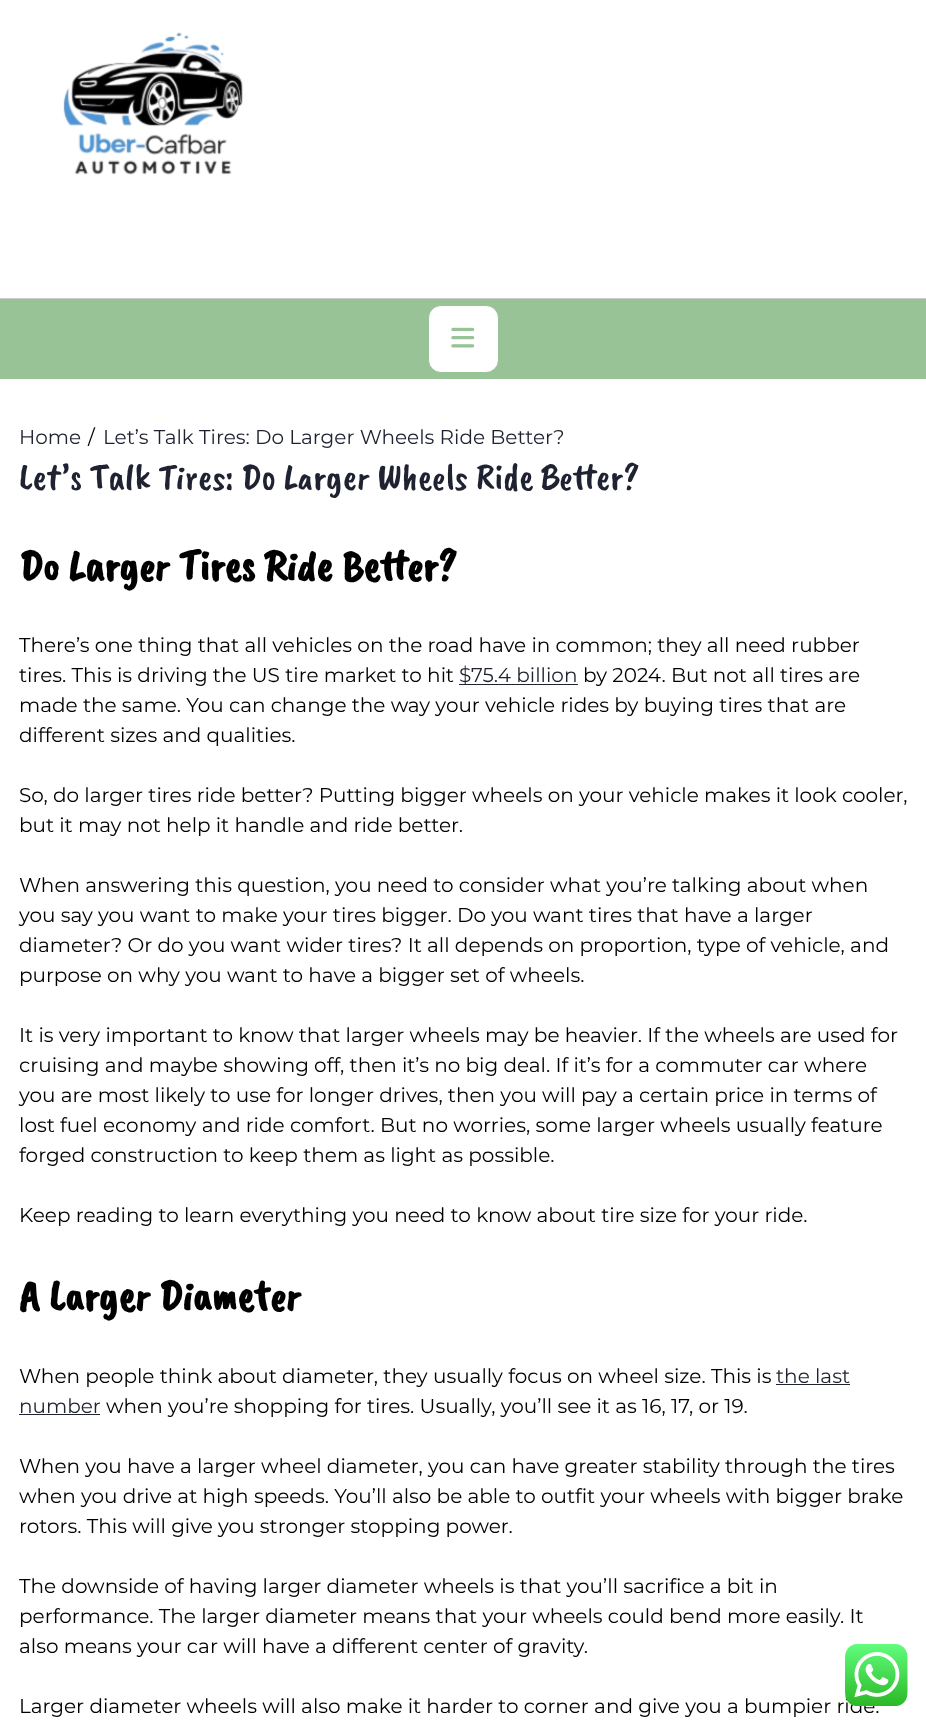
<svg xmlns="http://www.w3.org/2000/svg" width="926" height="1725">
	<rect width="100%" height="100%" fill="#FFFFFF" />
	<rect x="0" y="298" width="926" height="1" fill="#CCCCCC" />
	<image x="63" y="32" width="180" height="143" href="assets/img1.png" />
	<rect x="0" y="299" width="926" height="80" fill="#98C397" />
	<rect x="428.5" y="305.5" width="70" height="67" rx="12.5" fill="#FFFFFF" stroke="#98C397" />
	<image x="451" y="327" width="24" height="21" href="assets/img2.png" />
	<text x="19" y="444" font-family="Montserrat" font-size="20" font-weight="100" fill="#1F2230">Home</text>
	<text x="88" y="444" font-family="Montserrat" font-size="20" font-weight="100" fill="#000000">/</text>
	<text x="103" y="444" font-family="Montserrat" font-size="20" font-weight="100" fill="#1F2230">Let’s Talk Tires: Do Larger Wheels Ride Better?</text>
	<text x="19" y="489" font-family="Caveat Brush" font-size="37.5" fill="#1F2230">Let’s Talk Tires: Do Larger Wheels Ride Better?</text>
	<text x="19" y="580" font-family="Caveat Brush" font-size="44" font-weight="700" fill="#000000">Do Larger Tires Ride Better?</text>
	<g font-family="Montserrat" font-size="20" font-weight="100" fill="#000000">
		<text x="19" y="652">There’s one thing that all vehicles on the road have in common; they all need rubber</text>
		<text x="19" y="682">tires. This is driving the US tire market to hit</text>
	</g>
	<rect x="459" y="684" width="119" height="1" fill="#1F2230" />
	<text x="459" y="682" font-family="Montserrat" font-size="20" font-weight="100" fill="#1F2230">$75.4 billion</text>
	<g font-family="Montserrat" font-size="20" font-weight="100" fill="#000000">
		<text x="583" y="682">by 2024. But not all tires are</text>
		<text x="19" y="712">made the same. You can change the way your vehicle rides by buying tires that are</text>
		<text x="19" y="742">different sizes and qualities.</text>
		<text x="19" y="802">So, do larger tires ride better? Putting bigger wheels on your vehicle makes it look cooler,</text>
		<text x="19" y="832">but it may not help it handle and ride better.</text>
		<text x="19" y="892">When answering this question, you need to consider what you’re talking about when</text>
		<text x="19" y="922">you say you want to make your tires bigger. Do you want tires that have a larger</text>
		<text x="19" y="952">diameter? Or do you want wider tires? It all depends on proportion, type of vehicle, and</text>
		<text x="19" y="982">purpose on why you want to have a bigger set of wheels.</text>
		<text x="19" y="1042">It is very important to know that larger wheels may be heavier. If the wheels are used for</text>
		<text x="19" y="1072">cruising and maybe showing off, then it’s no big deal. If it’s for a commuter car where</text>
		<text x="19" y="1102">you are most likely to use for longer drives, then you will pay a certain price in terms of</text>
		<text x="19" y="1132">lost fuel economy and ride comfort. But no worries, some larger wheels usually feature</text>
		<text x="19" y="1162">forged construction to keep them as light as possible.</text>
		<text x="19" y="1222">Keep reading to learn everything you need to know about tire size for your ride.</text>
	</g>
	<text x="19" y="1310" font-family="Caveat Brush" font-size="44" font-weight="700" fill="#000000">A Larger Diameter</text>
	<text x="19" y="1383" font-family="Montserrat" font-size="20" font-weight="100" fill="#000000">When people think about diameter, they usually focus on wheel size. This is</text>
	<text x="776" y="1383" font-family="Montserrat" font-size="20" font-weight="100" fill="#1F2230">the last</text>
	<rect x="776" y="1384" width="74" height="1" fill="#1F2230" />
	<text x="19" y="1413" font-family="Montserrat" font-size="20" font-weight="100" fill="#1F2230">number</text>
	<rect x="19" y="1414" width="81" height="1" fill="#1F2230" />
	<g font-family="Montserrat" font-size="20" font-weight="100" fill="#000000">
		<text x="106" y="1413">when you’re shopping for tires. Usually, you’ll see it as 16, 17, or 19.</text>
		<text x="19" y="1473">When you have a larger wheel diameter, you can have greater stability through the tires</text>
		<text x="19" y="1503">when you drive at high speeds. You’ll also be able to outfit your wheels with bigger brake</text>
		<text x="19" y="1533">rotors. This will give you stronger stopping power.</text>
		<text x="19" y="1593">The downside of having larger diameter wheels is that you’ll sacrifice a bit in</text>
		<text x="19" y="1623">performance. The larger diameter means that your wheels could bend more easily. It</text>
		<text x="19" y="1653">also means your car will have a different center of gravity.</text>
		<text x="19" y="1713">Larger diameter wheels will also make it harder to corner and give you a bumpier ride.</text>
	</g>
	<image x="845" y="1644" width="63" height="62" href="assets/img3.png" />
</svg>
